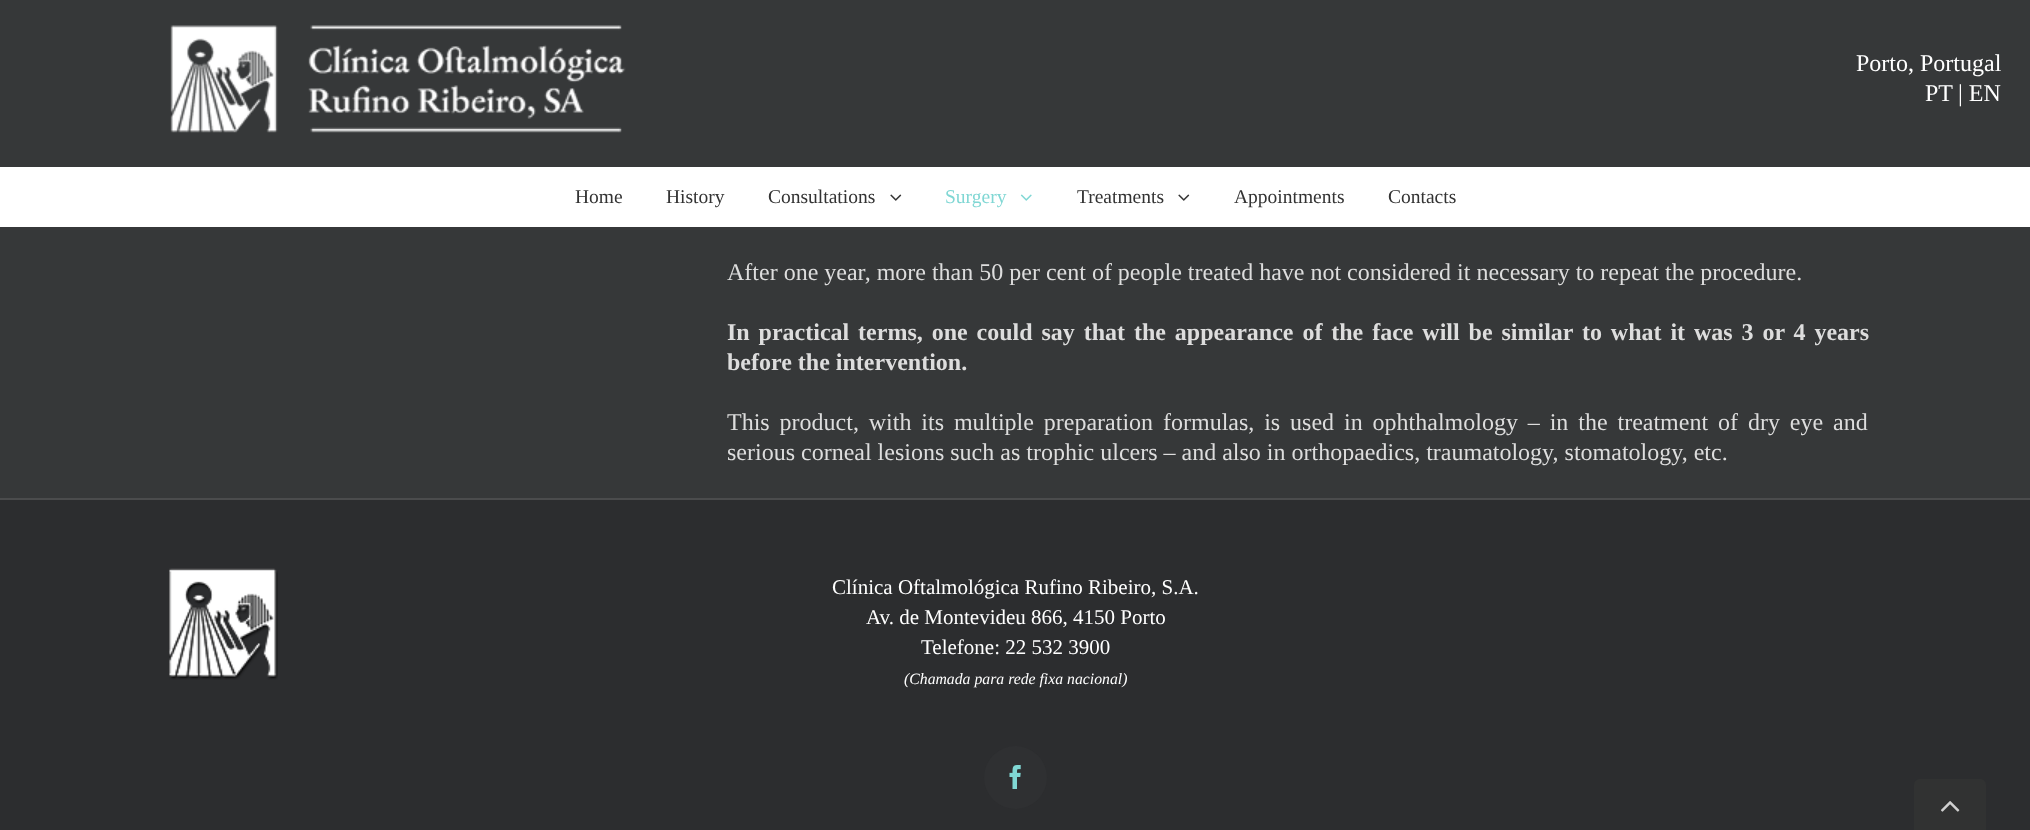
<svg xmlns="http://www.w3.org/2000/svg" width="2030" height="830">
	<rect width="100%" height="100%" fill="#363839" />
	<image x="170" y="25" width="456" height="108" href="assets/img1.png" />
	<g font-family="Liberation Serif" font-size="24" fill="#FFFFFF">
		<text x="1856" y="71">Porto, Portugal</text>
		<text x="1925" y="101">PT</text>
		<text x="1958" y="101">| EN</text>
	</g>
	<rect x="0" y="167" width="2030" height="60" fill="#FFFFFF" />
	<g font-family="Liberation Serif" font-size="19.5" fill="#333333">
		<text x="575" y="203">Home</text>
		<text x="666" y="203">History</text>
		<text x="768" y="203">Consultations</text>
	</g>
	<image x="890" y="194" width="12" height="7" href="assets/img2.png" />
	<text x="945" y="203" font-family="Liberation Serif" font-size="19.5" fill="#80D7D4">Surgery</text>
	<image x="1020" y="194" width="12" height="7" href="assets/img3.png" />
	<text x="1077" y="203" font-family="Liberation Serif" font-size="19.5" fill="#333333">Treatments</text>
	<image x="1178" y="194" width="12" height="7" href="assets/img2.png" />
	<g font-family="Liberation Serif" font-size="19.5" fill="#333333">
		<text x="1234" y="203">Appointments</text>
		<text x="1388" y="203">Contacts</text>
	</g>
	<text x="727" y="280" font-family="Liberation Serif" font-size="24" fill="#DDDDDD">After one year, more than 50 per cent of people treated have not considered it necessary to repeat the procedure.</text>
	<g font-family="Liberation Serif" font-size="24" font-weight="700" fill="#DDDDDD">
		<text x="727" y="340" word-spacing="2.9">In practical terms, one could say that the appearance of the face will be similar to what it was 3 or 4 years</text>
		<text x="727" y="370">before the intervention.</text>
	</g>
	<g font-family="Liberation Serif" font-size="24" fill="#DDDDDD">
		<text x="727" y="430" word-spacing="3.9">This product, with its multiple preparation formulas, is used in ophthalmology – in the treatment of dry eye and</text>
		<text x="727" y="460">serious corneal lesions such as trophic ulcers – and also in orthopaedics, traumatology, stomatology, etc.</text>
	</g>
	<rect x="0" y="500" width="2030" height="330" fill="#2C2D2F" />
	<rect x="0" y="498" width="2030" height="2" fill="#4B4C4D" />
	<image x="169" y="568" width="109" height="112" href="assets/img4.png" />
	<g font-family="Liberation Serif" font-size="21" fill="#FFFFFF">
		<text x="832" y="594">Clínica Oftalmológica Rufino Ribeiro, S.A.</text>
		<text x="866" y="624">Av. de Montevideu 866, 4150 Porto</text>
		<text x="921" y="654">Telefone: 22 532 3900</text>
	</g>
	<text x="904" y="684" font-family="Liberation Serif" font-size="15.75" font-style="italic" fill="#FFFFFF">(Chamada para rede fixa nacional)</text>
	<circle cx="1015.5" cy="777.5" r="31.5" fill="#2F3032" />
	<image x="1009" y="765" width="12" height="24" href="assets/img5.png" />
	<path d="M1920 779H1980C1983.5 779 1986 781.5 1986 785V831H1914V785C1914 781.5 1916.5 779 1920 779Z" fill="#313232" />
	<image x="1941" y="801" width="19" height="11" href="assets/img6.png" />
</svg>
